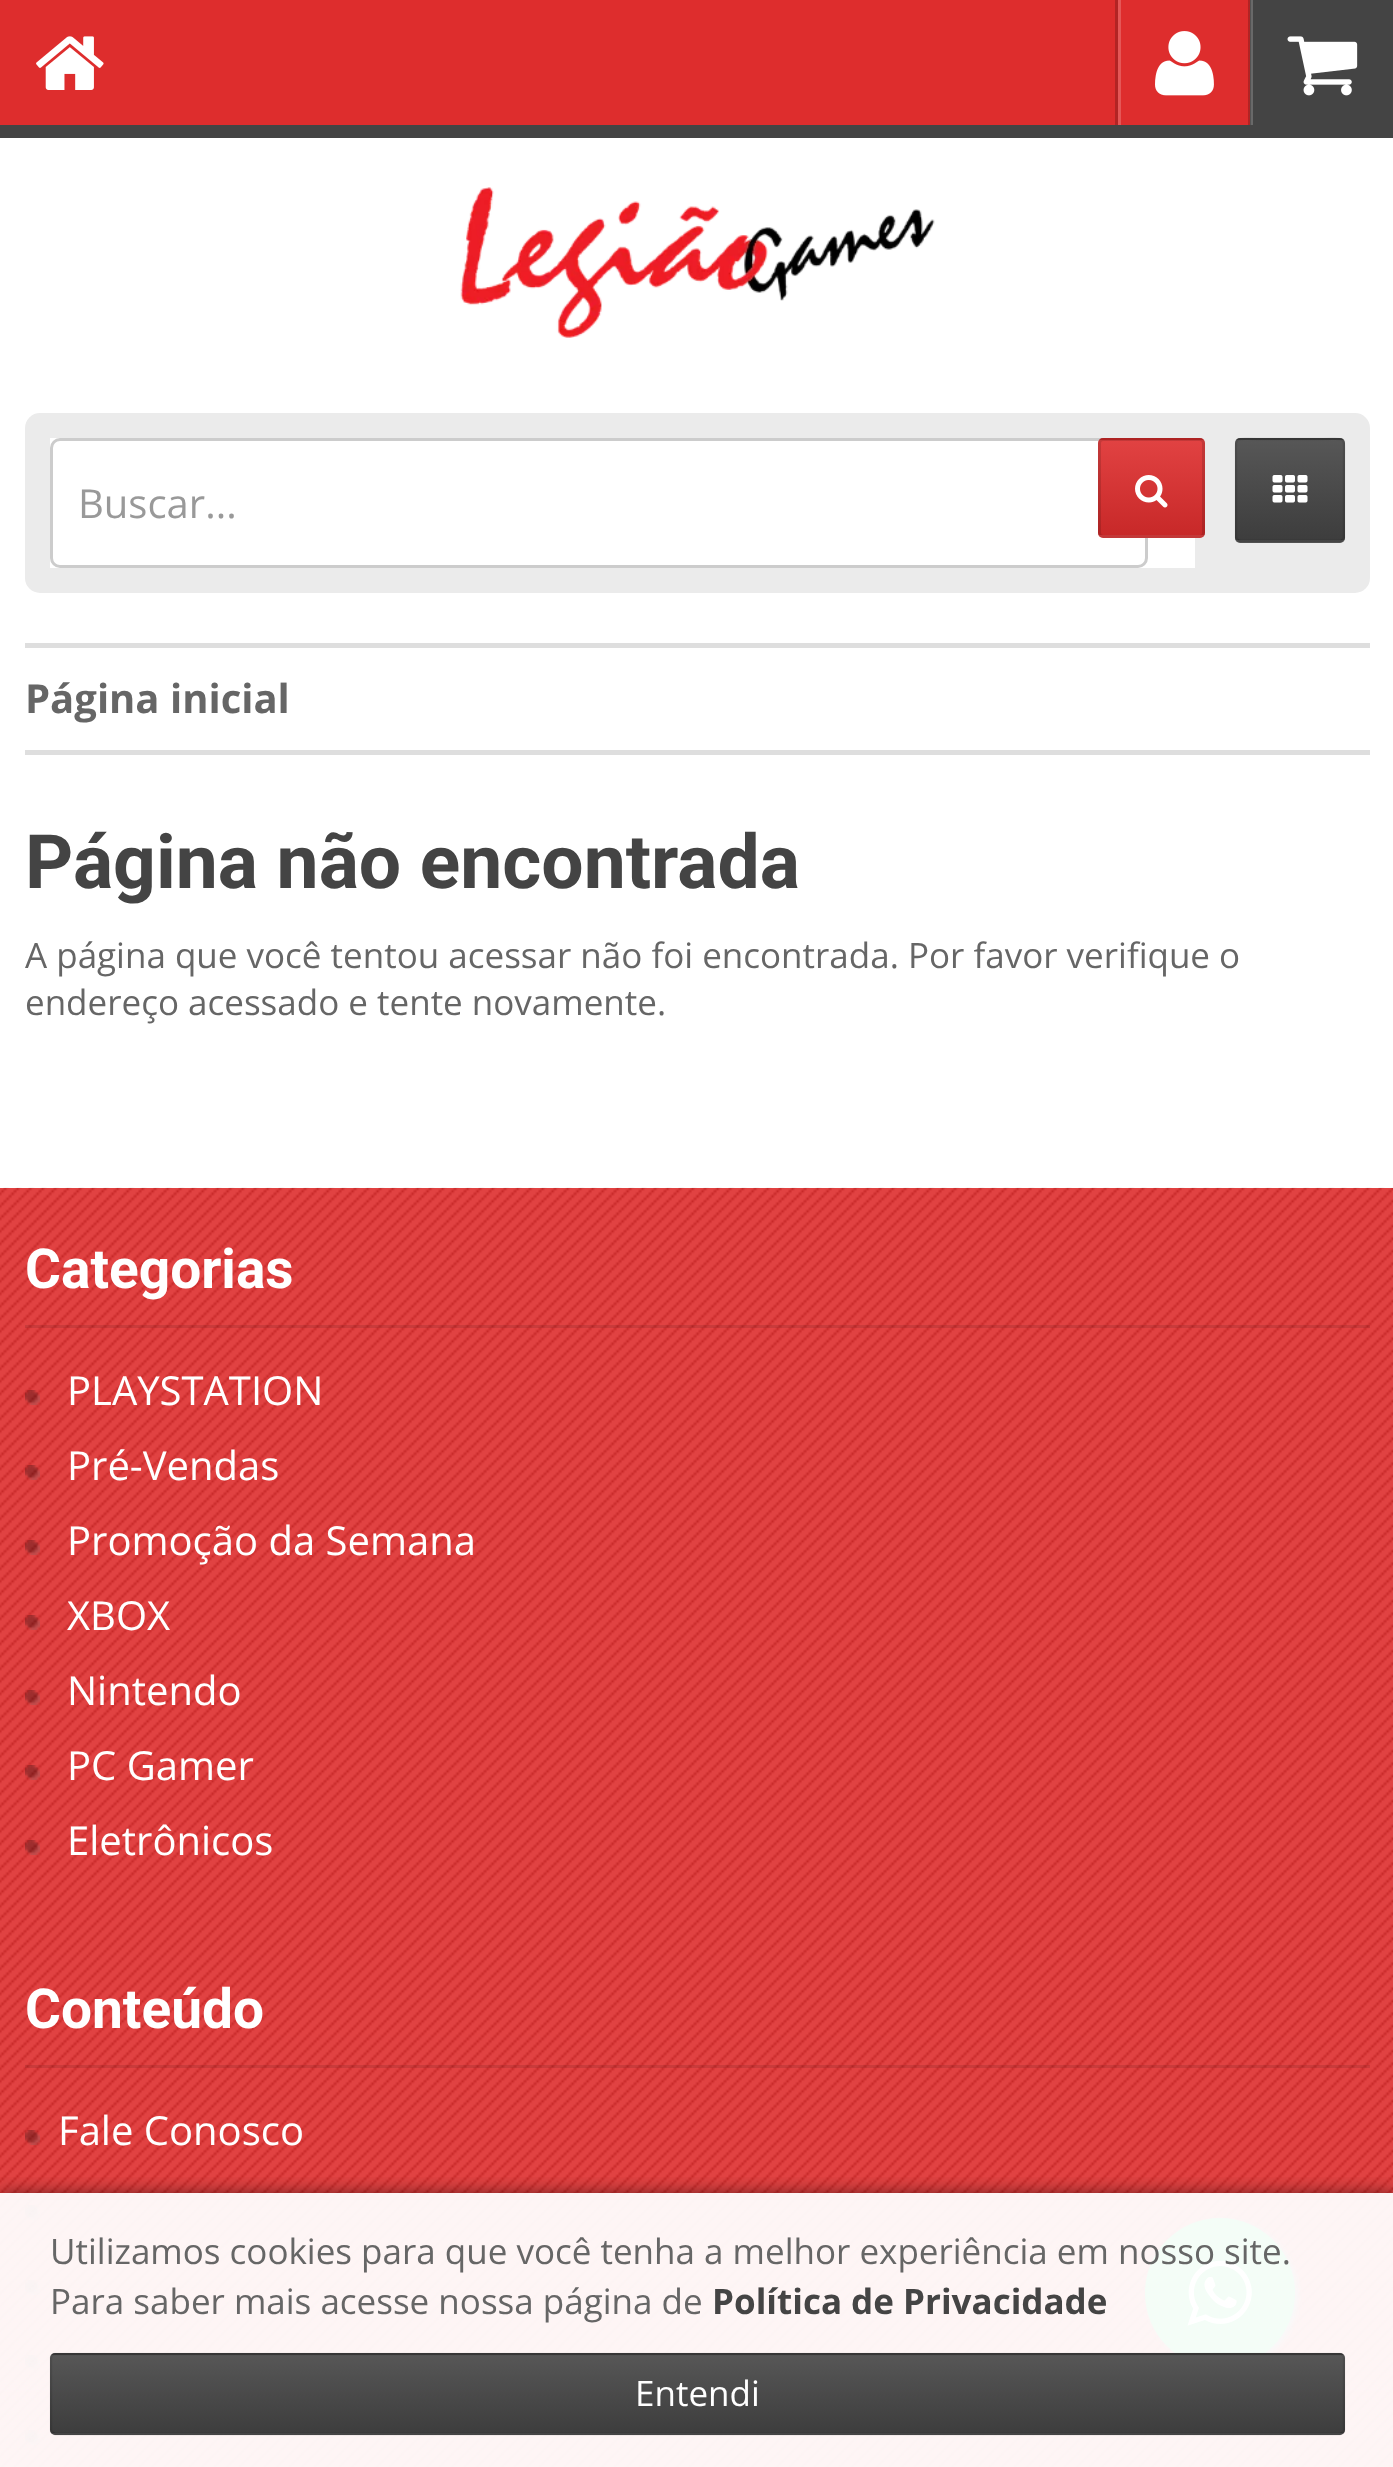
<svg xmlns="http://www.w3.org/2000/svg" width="1393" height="2467">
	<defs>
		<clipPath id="clip1"><rect x="1098" y="438" width="107" height="100" rx="5" /></clipPath>
		<linearGradient id="g1" gradientUnits="userSpaceOnUse" x1="1151" y1="345" x2="1151" y2="440"><stop offset="0" stop-color="#FFFFFF" stop-opacity="0.1" /><stop offset="1" stop-color="#000000" stop-opacity="0.1" /></linearGradient>
		<linearGradient id="g2" gradientUnits="userSpaceOnUse" x1="1151" y1="440" x2="1151" y2="535"><stop offset="0" stop-color="#FFFFFF" stop-opacity="0.1" /><stop offset="1" stop-color="#000000" stop-opacity="0.1" /></linearGradient>
		<linearGradient id="g3" gradientUnits="userSpaceOnUse" x1="1151" y1="535" x2="1151" y2="630"><stop offset="0" stop-color="#FFFFFF" stop-opacity="0.1" /><stop offset="1" stop-color="#000000" stop-opacity="0.1" /></linearGradient>
		<clipPath id="clip2"><rect x="1235" y="438" width="110" height="105" rx="5" /></clipPath>
		<linearGradient id="g4" gradientUnits="userSpaceOnUse" x1="1290" y1="340" x2="1290" y2="440"><stop offset="0" stop-color="#FFFFFF" stop-opacity="0.1" /><stop offset="1" stop-color="#000000" stop-opacity="0.1" /></linearGradient>
		<linearGradient id="g5" gradientUnits="userSpaceOnUse" x1="1290" y1="440" x2="1290" y2="540"><stop offset="0" stop-color="#FFFFFF" stop-opacity="0.1" /><stop offset="1" stop-color="#000000" stop-opacity="0.1" /></linearGradient>
		<linearGradient id="g6" gradientUnits="userSpaceOnUse" x1="1290" y1="540" x2="1290" y2="640"><stop offset="0" stop-color="#FFFFFF" stop-opacity="0.1" /><stop offset="1" stop-color="#000000" stop-opacity="0.1" /></linearGradient>
		<clipPath id="clip3"><rect x="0" y="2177" width="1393" height="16" /></clipPath>
		<clipPath id="clip4"><rect x="50" y="2353" width="1295" height="82" rx="5" /></clipPath>
		<linearGradient id="g7" gradientUnits="userSpaceOnUse" x1="698" y1="2278" x2="698" y2="2355"><stop offset="0" stop-color="#FFFFFF" stop-opacity="0.1" /><stop offset="1" stop-color="#000000" stop-opacity="0.1" /></linearGradient>
		<linearGradient id="g8" gradientUnits="userSpaceOnUse" x1="698" y1="2355" x2="698" y2="2433"><stop offset="0" stop-color="#FFFFFF" stop-opacity="0.1" /><stop offset="1" stop-color="#000000" stop-opacity="0.1" /></linearGradient>
		<linearGradient id="g9" gradientUnits="userSpaceOnUse" x1="698" y1="2433" x2="698" y2="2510"><stop offset="0" stop-color="#FFFFFF" stop-opacity="0.1" /><stop offset="1" stop-color="#000000" stop-opacity="0.1" /></linearGradient>
	</defs>
	<rect width="100%" height="100%" fill="#FFFFFF" />
	<rect x="0" y="0" width="1248" height="125" fill="#DE2D2D" />
	<rect x="1248" y="0" width="2" height="125" fill="#B22424" />
	<rect x="0" y="125" width="1393" height="13" fill="#444444" />
	<image x="36" y="36" width="68" height="54" href="assets/img1.png" />
	<rect x="1115" y="0" width="3" height="125" fill="#B22424" />
	<rect x="1118" y="0" width="3" height="125" fill="#E55757" />
	<image x="1155" y="31" width="59" height="65" href="assets/img2.png" />
	<rect x="1253" y="0" width="140" height="125" fill="#444444" />
	<rect x="1251" y="0" width="2" height="125" fill="#696969" />
	<rect x="1250" y="0" width="1" height="125" fill="#545454" />
	<image x="1287" y="36" width="71" height="60" href="assets/img3.png" />
	<image x="460" y="187" width="475" height="151" href="assets/img4.png" />
	<rect x="25" y="413" width="1345" height="180" rx="15" fill="#EBEBEB" />
	<rect x="50" y="438" width="1145" height="130" fill="#FFFFFF" />
	<rect x="51.5" y="439.5" width="1095" height="127" rx="8.5" fill="none" stroke="#CCCCCC" stroke-width="3" />
	<text x="78" y="518" font-family="Open Sans" font-size="40" fill="#999999">Buscar...</text>
	<rect x="1098" y="438" width="107" height="100" rx="5" fill="#DE2D2D" />
	<g clip-path="url(#clip1)">
		<rect x="1098" y="438" width="107" height="2" fill="url(#g1)" />
	</g>
	<rect x="1098" y="440" width="107" height="95" fill="url(#g2)" />
	<g clip-path="url(#clip1)">
		<rect x="1098" y="535" width="107" height="3" fill="url(#g3)" />
	</g>
	<rect x="1099.5" y="439.5" width="104" height="97" rx="3.5" fill="none" stroke="#000000" stroke-opacity="0.13" stroke-width="3" />
	<image x="1135" y="475" width="33" height="33" href="assets/img5.png" />
	<rect x="1235" y="438" width="110" height="105" rx="5" fill="#444444" />
	<g clip-path="url(#clip2)">
		<rect x="1235" y="438" width="110" height="2" fill="url(#g4)" />
	</g>
	<rect x="1235" y="440" width="110" height="100" fill="url(#g5)" />
	<g clip-path="url(#clip2)">
		<rect x="1235" y="540" width="110" height="3" fill="url(#g6)" />
	</g>
	<path d="M1342.5 540L1340.5 541H1256.5H1240L1237.5 540" fill="none" stroke="#000000" stroke-opacity="0.2" stroke-width="2.5" />
	<path d="M1237.5 540L1236 537.5V458.5C1236 435 1232.5 439 1256.5 439H1323.5C1347.5 439 1344 435 1344 458.5V537.5L1342.5 540" fill="none" stroke="#000000" stroke-opacity="0.1" stroke-width="2.5" />
	<image x="1272" y="475" width="36" height="28" href="assets/img6.png" />
	<rect x="25" y="643" width="1345" height="5" fill="#DEDEDE" />
	<rect x="25" y="750" width="1345" height="5" fill="#DEDEDE" />
	<text x="25" y="713" font-family="Open Sans" font-size="40" font-weight="700" fill="#666666">Página inicial</text>
	<text x="25" y="888" font-family="Roboto" font-size="75" font-weight="700" fill="#444444">Página não encontrada</text>
	<g font-family="Open Sans" font-size="35" fill="#666666">
		<text x="25" y="968">A página que você tentou acessar não foi encontrada. Por favor verifique o</text>
		<text x="25" y="1015">endereço acessado e tente novamente.</text>
	</g>
	<rect x="0" y="1188" width="1393" height="1279" fill="#DE2D2D" />
	<image x="0" y="1187" width="1393" height="1280" href="assets/img7.png" />
	<rect x="25" y="1325" width="1345" height="3" fill="#000000" fill-opacity="0.1" />
	<text x="25" y="1288" font-family="Roboto" font-size="55" font-weight="700" fill="#FFFFFF">Categorias</text>
	<image x="25" y="1390" width="15" height="15" href="assets/img8.png" />
	<text x="67" y="1405" font-family="Open Sans" font-size="40" fill="#FFFFFF">PLAYSTATION</text>
	<image x="25" y="1465" width="15" height="15" href="assets/img8.png" />
	<text x="67" y="1480" font-family="Open Sans" font-size="40" fill="#FFFFFF">Pré-Vendas</text>
	<image x="25" y="1540" width="15" height="15" href="assets/img9.png" />
	<text x="67" y="1555" font-family="Open Sans" font-size="40" fill="#FFFFFF">Promoção da Semana</text>
	<image x="25" y="1615" width="15" height="15" href="assets/img9.png" />
	<text x="67" y="1630" font-family="Open Sans" font-size="40" fill="#FFFFFF">XBOX</text>
	<image x="25" y="1690" width="15" height="15" href="assets/img9.png" />
	<text x="67" y="1705" font-family="Open Sans" font-size="40" fill="#FFFFFF">Nintendo</text>
	<image x="25" y="1765" width="15" height="15" href="assets/img9.png" />
	<text x="67" y="1780" font-family="Open Sans" font-size="40" fill="#FFFFFF">PC Gamer</text>
	<image x="25" y="1840" width="15" height="15" href="assets/img9.png" />
	<text x="67" y="1855" font-family="Open Sans" font-size="40" fill="#FFFFFF">Eletrônicos</text>
	<rect x="25" y="2065" width="1345" height="3" fill="#000000" fill-opacity="0.1" />
	<text x="25" y="2028" font-family="Roboto" font-size="55" font-weight="700" fill="#FFFFFF">Conteúdo</text>
	<image x="25" y="2130" width="15" height="15" href="assets/img10.png" />
	<text x="58" y="2145" font-family="Open Sans" font-size="40" fill="#FFFFFF">Fale Conosco</text>
	<image x="25" y="2205" width="15" height="15" href="assets/img10.png" />
	<image x="25" y="2280" width="15" height="15" href="assets/img10.png" />
	<image x="25" y="2355" width="15" height="15" href="assets/img10.png" />
	<image x="25" y="2430" width="15" height="15" href="assets/img10.png" />
	<rect x="1148" y="2220" width="150" height="150" rx="75" fill="#888888" filter="blur(2.5px)" />
	<circle cx="1220" cy="2293" r="75" fill="#25D366" />
	<image x="1187" y="2260" width="65" height="66" href="assets/img11.png" />
	<g clip-path="url(#clip3)">
		<rect x="0" y="2193" width="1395" height="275" fill="#000000" fill-opacity="0.5" filter="blur(9px)" />
	</g>
	<rect x="0" y="2193" width="1393" height="274" fill="#FFFFFF" fill-opacity="0.95" />
	<g font-family="Open Sans" font-size="35" fill="#666666">
		<text x="50" y="2264">Utilizamos cookies para que você tenha a melhor experiência em nosso site.</text>
		<text x="50" y="2314">Para saber mais acesse nossa página de</text>
	</g>
	<text x="712" y="2314" font-family="Open Sans" font-size="35" font-weight="700" fill="#444444">Política de Privacidade</text>
	<rect x="50" y="2353" width="1295" height="82" rx="5" fill="#444444" />
	<g clip-path="url(#clip4)">
		<rect x="50" y="2353" width="1295" height="2" fill="url(#g7)" />
		<rect x="50" y="2355" width="1295" height="78" fill="url(#g8)" />
		<rect x="50" y="2433" width="1295" height="2" fill="url(#g9)" />
	</g>
	<path d="M1342.5 2432.5L1340 2434H55L52.5 2432.5" fill="none" stroke="#000000" stroke-opacity="0.2" stroke-width="2.5" />
	<path d="M52.5 2432.5C51.5 2432 51 2431 51 2430V2357.5C51 2356.5 51.5 2355.5 52.5 2355C53 2354 54 2354 55 2354H1340C1341 2354 1342 2354 1342.5 2355C1343.5 2355.5 1344 2356.5 1344 2357.5V2430C1344 2431 1343.5 2432 1342.5 2432.5" fill="none" stroke="#000000" stroke-opacity="0.1" stroke-width="2.5" />
	<text x="635" y="2406" font-family="Open Sans" font-size="35" fill="#FFFFFF">Entendi</text>
</svg>
